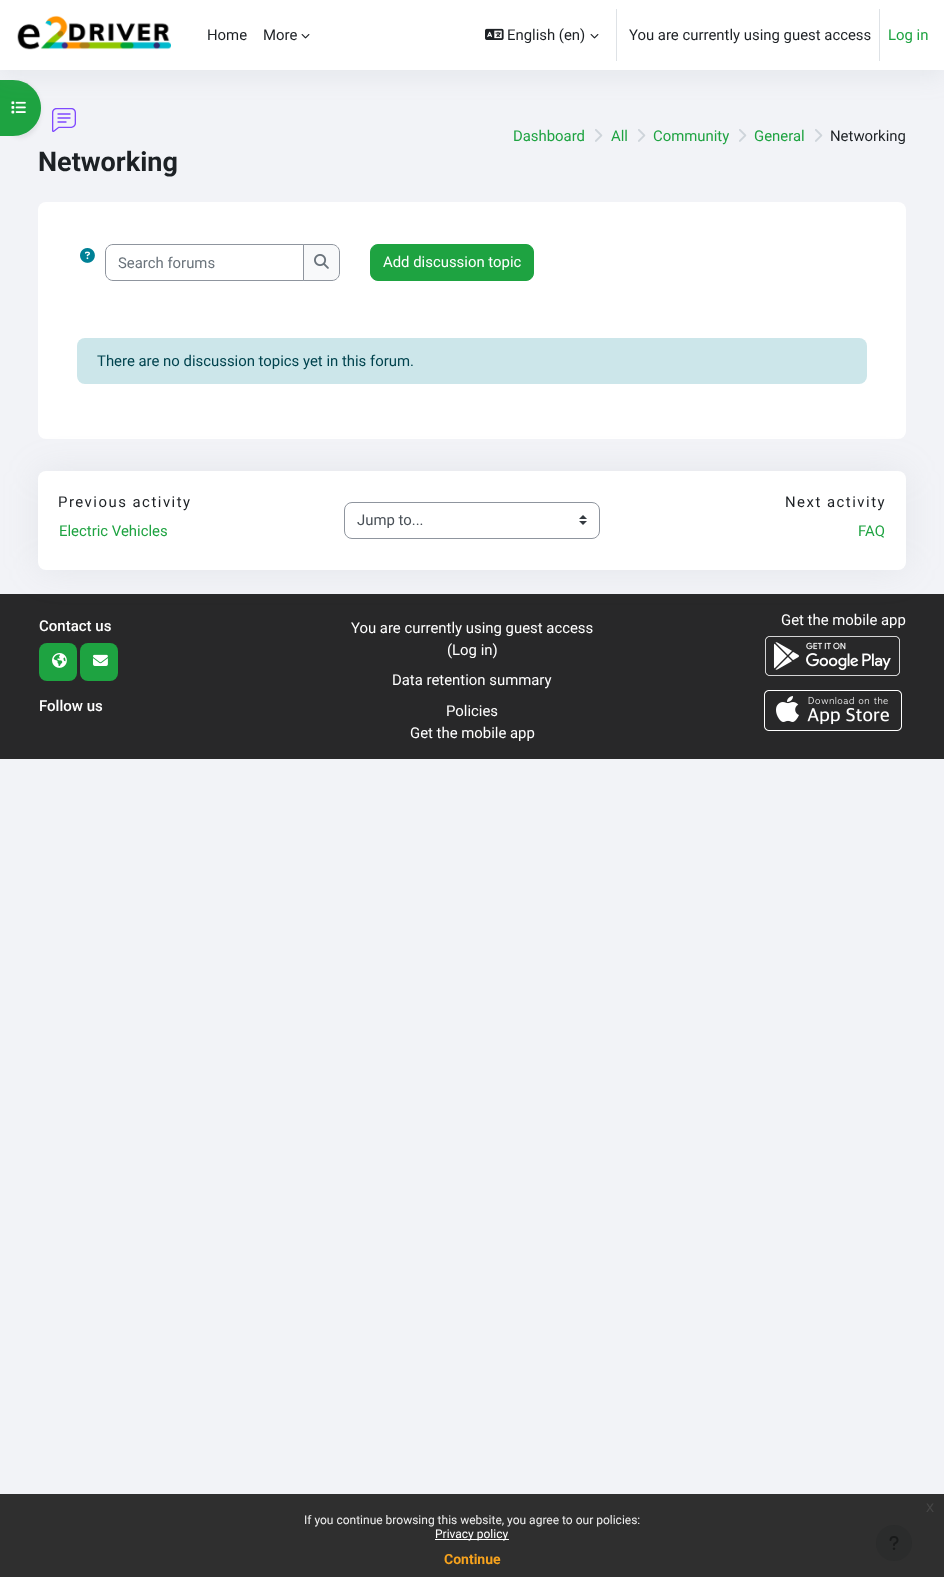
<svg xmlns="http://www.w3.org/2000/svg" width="944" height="1577">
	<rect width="100%" height="100%" fill="#F2F3F7" />
	<rect x="0" y="1494" width="944" height="83" fill="#2F2F2F" />
	<image x="52" y="108" width="24" height="24" href="assets/img5.png" />
	<rect x="0" y="82" width="41" height="56" rx="28" fill="#000000" fill-opacity="0.07" filter="blur(2px)" />
	<path d="M0 80H13C28.5 80 41 92.5 41 108C41 123.5 28.5 136 13 136H0Z" fill="#1EA341" />
	<image x="11" y="101" width="15" height="13" href="assets/img6.png" />
	<rect x="0" y="6" width="944" height="70" fill="#8C98A4" fill-opacity="0.13" filter="blur(12px)" />
	<rect x="0" y="0" width="944" height="70" fill="#FFFFFF" />
	<image x="17" y="15" width="154" height="35" href="assets/img1.png" />
	<g font-family="Roboto" font-size="14.9" fill="#1D2125">
		<text x="207" y="40">Home</text>
		<text x="263" y="40">More</text>
	</g>
	<image x="301" y="34" width="9" height="5" href="assets/img2.png" />
	<image x="485" y="28" width="19" height="12" href="assets/img3.png" />
	<text x="507" y="40" font-family="Roboto" font-size="14.9" fill="#1D2125">English (en)</text>
	<image x="590" y="34" width="9" height="5" href="assets/img2.png" />
	<rect x="616" y="9" width="1" height="52" fill="#DEE2E6" />
	<text x="629" y="40" font-family="Roboto" font-size="14.9" fill="#1D2125">You are currently using guest access</text>
	<rect x="879" y="9" width="1" height="52" fill="#DEE2E6" />
	<g font-family="Roboto" font-size="14.9" fill="#1EA341">
		<text x="888" y="40">Log in</text>
		<text x="513" y="141">Dashboard</text>
	</g>
	<image x="595" y="129" width="8" height="13" href="assets/img4.png" />
	<text x="611" y="141" font-family="Roboto" font-size="14.9" fill="#1EA341">All</text>
	<image x="638" y="129" width="8" height="13" href="assets/img4.png" />
	<text x="653" y="141" font-family="Roboto" font-size="14.9" fill="#1EA341">Community</text>
	<image x="739" y="129" width="8" height="13" href="assets/img4.png" />
	<text x="754" y="141" font-family="Roboto" font-size="14.9" fill="#1EA341">General</text>
	<image x="815" y="129" width="8" height="13" href="assets/img4.png" />
	<text x="830" y="141" font-family="Roboto" font-size="14.9" fill="#1D2125">Networking</text>
	<text x="38" y="171" font-family="Roboto" font-size="27" font-weight="700" fill="#1D2125">Networking</text>
	<rect x="38" y="202" width="868" height="237" rx="8" fill="#FFFFFF" />
	<image x="80" y="248" width="15" height="15" href="assets/img7.png" />
	<path d="M113 244.5H303.5V280.5H113C109 280.5 105.5 277 105.5 273V252C105.5 248 109 244.5 113 244.5Z" fill="none" stroke="#8F959E" />
	<text x="118" y="268" font-family="Roboto" font-size="14.9" fill="#6A737B">Search forums</text>
	<path d="M303.5 244.5H332C336 244.5 339.5 248 339.5 252V273C339.5 277 336 280.5 332 280.5H303.5Z" fill="#F8F9FA" stroke="#8F959E" />
	<image x="314" y="254" width="15" height="15" href="assets/img8.png" />
	<rect x="370.5" y="244.5" width="163" height="36" rx="7.5" fill="#1EA341" stroke="#1EA341" />
	<text x="383" y="267" font-family="Roboto" font-size="14.9" fill="#FFFFFF">Add discussion topic</text>
	<rect x="77" y="338" width="790" height="46" rx="8" fill="#CCE6EA" />
	<text x="97" y="366" font-family="Roboto" font-size="14.9" fill="#00434E">There are no discussion topics yet in this forum.</text>
	<rect x="0" y="594" width="944" height="165" fill="#282829" />
	<rect x="38" y="471" width="868" height="99" rx="8" fill="#9AA1AB" fill-opacity="0.15" filter="blur(17.5px)" />
	<rect x="38" y="471" width="868" height="99" rx="8" fill="#FFFFFF" />
	<text x="58" y="507" font-family="Roboto" font-size="14.9" letter-spacing="1.5" fill="#1D2125">Previous activity</text>
	<text x="59" y="536" font-family="Roboto" font-size="14.9" fill="#1EA341">Electric Vehicles</text>
	<image x="579" y="515" width="8" height="10" href="assets/img9.png" />
	<rect x="344.5" y="502.5" width="255" height="36" rx="7.5" fill="none" stroke="#8F959E" />
	<text x="357" y="525" font-family="Roboto" font-size="14.9" fill="#495057">Jump to...</text>
	<text x="785" y="507" font-family="Roboto" font-size="14.9" letter-spacing="1.5" fill="#1D2125">Next activity</text>
	<text x="858" y="536" font-family="Roboto" font-size="14.9" fill="#1EA341">FAQ</text>
	<text x="39" y="631" font-family="Roboto" font-size="15" font-weight="500" fill="#FFFFFF">Contact us</text>
	<rect x="39" y="643" width="38" height="38" rx="8" fill="#1EA341" />
	<image x="52" y="653" width="15" height="15" href="assets/img10.png" />
	<rect x="80" y="643" width="38" height="38" rx="8" fill="#1EA341" />
	<image x="93" y="654" width="15" height="12" href="assets/img11.png" />
	<text x="39" y="711" font-family="Roboto" font-size="15" font-weight="500" fill="#FFFFFF">Follow us</text>
	<g font-family="Roboto" font-size="14.9" fill="#FFFFFF">
		<text x="351" y="633">You are currently using guest access</text>
		<text x="447" y="655">(Log in)</text>
		<text x="392" y="685">Data retention summary</text>
		<text x="446" y="716">Policies</text>
		<text x="410" y="738">Get the mobile app</text>
		<text x="781" y="625">Get the mobile app</text>
	</g>
	<image x="765" y="636" width="135" height="40" href="assets/img12.png" />
	<image x="764" y="690" width="138" height="41" href="assets/img13.png" />
	<circle cx="894" cy="1543" r="18" fill="#2B2C2C" />
	<image x="889" y="1536" width="10" height="14" href="assets/img14.png" />
	<text x="926" y="1512" font-family="Liberation Sans" font-size="16" fill="#464646">x</text>
	<text x="304" y="1524" font-family="Roboto" font-size="12" fill="#EFEFEF">If you continue browsing this website, you agree to our policies:</text>
	<rect x="435" y="1539" width="74" height="1" fill="#FFFFFF" />
	<text x="435" y="1538" font-family="Roboto" font-size="12" fill="#FFFFFF">Privacy policy</text>
	<text x="444" y="1564" font-family="Roboto" font-size="14" font-weight="700" fill="#F6A21D">Continue</text>
</svg>
